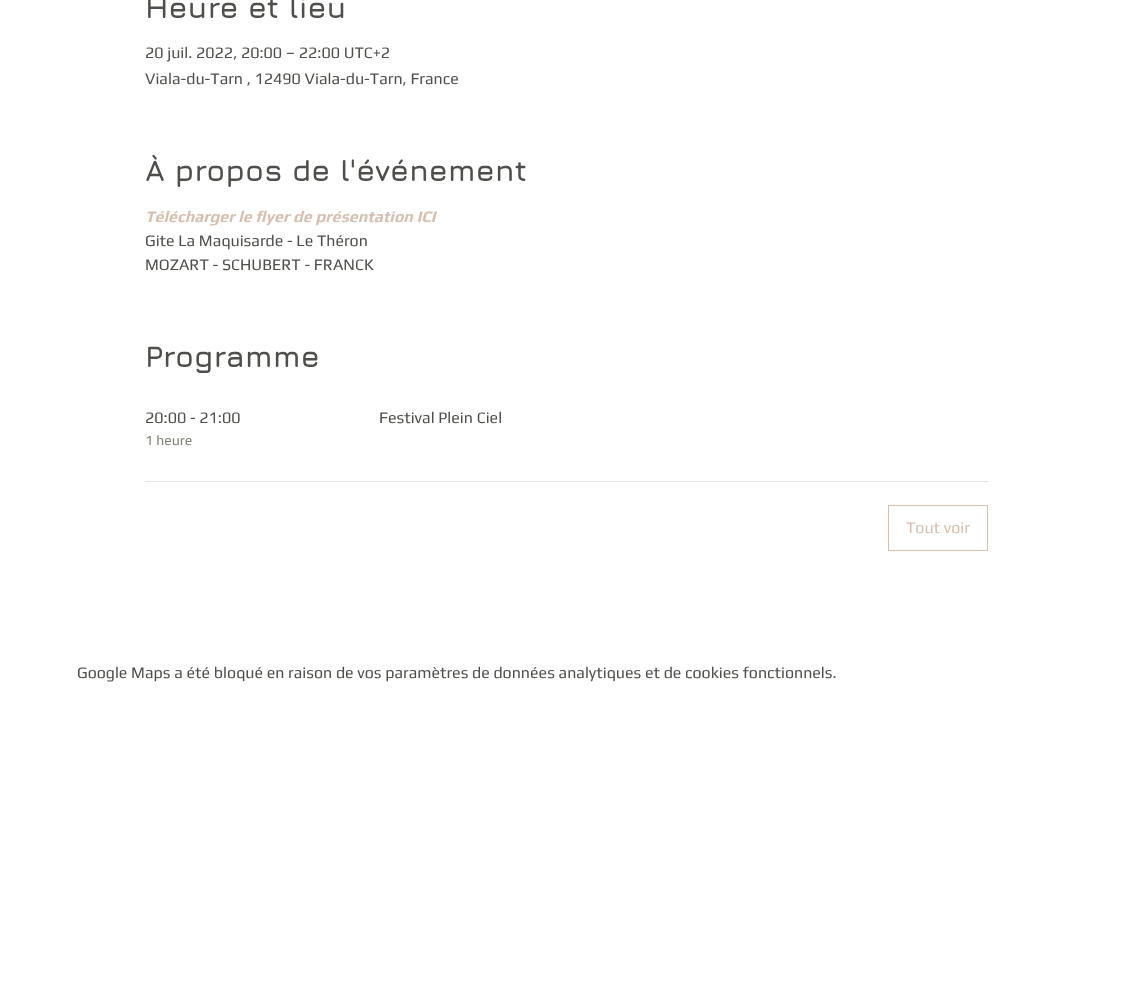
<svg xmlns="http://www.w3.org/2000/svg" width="1132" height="1000">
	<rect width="100%" height="100%" fill="#FFFFFF" />
	<text x="145" y="18" font-family="Jura" font-size="30" font-weight="700" fill="#4F4E4A">Heure et lieu</text>
	<g font-family="Play" font-size="16" fill="#4F4E4A">
		<text x="145" y="58">20 juil. 2022, 20:00 – 22:00 UTC+2</text>
		<text x="145" y="84">Viala-du-Tarn , 12490 Viala-du-Tarn, France</text>
	</g>
	<text x="145" y="181" font-family="Jura" font-size="30" font-weight="700" fill="#4F4E4A">À propos de l'événement</text>
	<text x="145" y="222" font-family="Play" font-size="16" font-weight="700" font-style="italic" fill="#D6BFAF">Télécharger le flyer de présentation ICI</text>
	<g font-family="Play" font-size="16" fill="#4F4E4A">
		<text x="145" y="246">Gite La Maquisarde - Le Théron</text>
		<text x="145" y="270">MOZART - SCHUBERT - FRANCK</text>
	</g>
	<text x="145" y="367" font-family="Jura" font-size="30" font-weight="700" fill="#4F4E4A">Programme</text>
	<text x="145" y="423" font-family="Play" font-size="16" fill="#4F4E4A">20:00 - 21:00</text>
	<text x="145" y="445" font-family="Play" font-size="14" fill="#817F73">1 heure</text>
	<text x="379" y="423" font-family="Play" font-size="16" fill="#4F4E4A">Festival Plein Ciel</text>
	<rect x="145" y="481" width="843" height="1" fill="#E5E4E4" />
	<rect x="888.5" y="505.5" width="99" height="45" fill="none" stroke="#D6BFAF" />
	<text x="906" y="533" font-family="Play" font-size="16" fill="#D6BFAF">Tout voir</text>
	<text x="77" y="678" font-family="Play" font-size="16" fill="#4F4E4A">Google Maps a été bloqué en raison de vos paramètres de données analytiques et de cookies fonctionnels.</text>
</svg>
